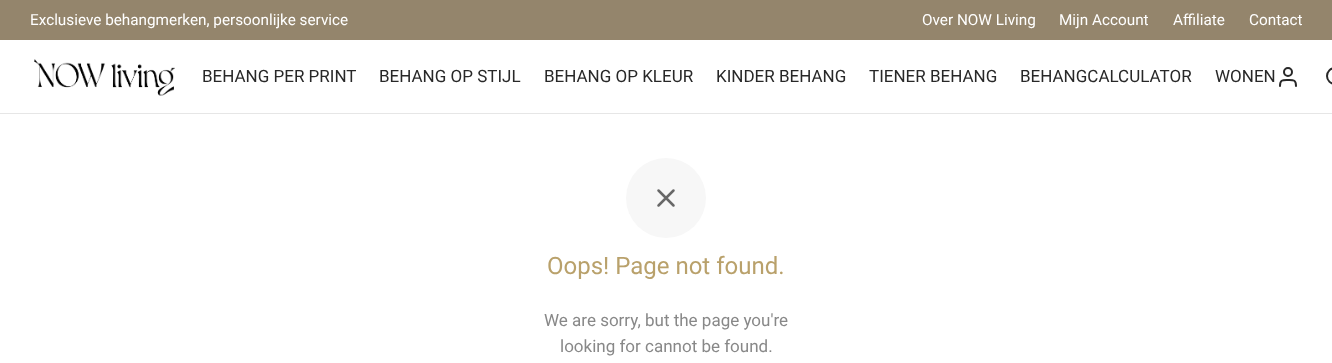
<svg xmlns="http://www.w3.org/2000/svg" width="1332" height="363">
	<rect width="100%" height="100%" fill="#FFFFFF" />
	<rect x="0" y="0" width="1332" height="40" fill="#94856C" />
	<g font-family="Roboto" font-size="15.3" fill="#FFFFFF">
		<text x="30" y="25">Exclusieve behangmerken, persoonlijke service</text>
		<text x="922" y="25">Over NOW Living</text>
		<text x="1059" y="25">Mijn Account</text>
		<text x="1173" y="25">Affiliate</text>
		<text x="1249" y="25">Contact</text>
	</g>
	<image x="34" y="59" width="141" height="37" href="assets/img1.png" />
	<g font-family="Roboto" font-size="17" fill="#282828">
		<text x="202" y="82">BEHANG PER PRINT</text>
		<text x="379" y="82">BEHANG OP STIJL</text>
		<text x="544" y="82">BEHANG OP KLEUR</text>
		<text x="716" y="82">KINDER BEHANG</text>
		<text x="869" y="82">TIENER BEHANG</text>
		<text x="1020" y="82">BEHANGCALCULATOR</text>
		<text x="1215" y="82">WONEN</text>
	</g>
	<path d="M1296 86C1296 79.5 1293.5 80 1288 80C1282.5 80 1280 79.5 1280 86" fill="none" stroke="#282828" stroke-width="2" stroke-linecap="round" stroke-linejoin="round" />
	<circle cx="1288" cy="72" r="4" fill="none" stroke="#282828" stroke-width="2" />
	<circle cx="1335" cy="76" r="8" fill="none" stroke="#282828" stroke-width="2" />
	<rect x="0" y="113" width="1332" height="1" fill="#E6E6E6" />
	<circle cx="666" cy="198" r="40" fill="#F7F7F7" />
	<path d="M673.5 190.5L658.5 205.5M658.5 190.5L673.5 205.5" fill="none" stroke="#686868" stroke-width="2.5" stroke-linecap="round" stroke-linejoin="round" />
	<text x="547" y="274" font-family="Roboto" font-size="24" fill="#B9A16B">Oops! Page not found.</text>
	<g font-family="Roboto" font-size="17" fill="#888888">
		<text x="544" y="326">We are sorry, but the page you're</text>
		<text x="560" y="352">looking for cannot be found.</text>
	</g>
</svg>
